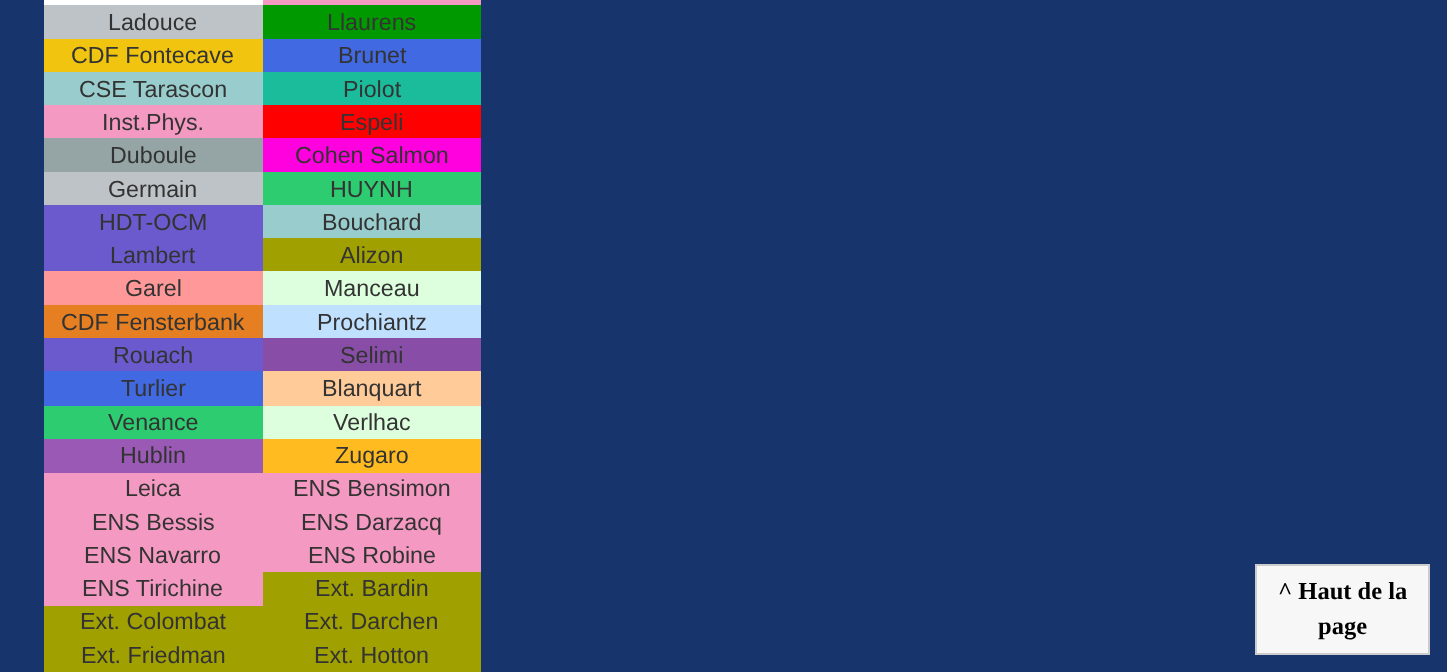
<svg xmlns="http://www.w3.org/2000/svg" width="1447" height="672">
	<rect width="100%" height="100%" fill="#17346C" />
	<rect x="44" y="0" width="219" height="5" fill="#FFFFFF" />
	<rect x="263" y="0" width="218" height="5" fill="#F49AC2" />
	<rect x="44" y="5" width="219" height="34" fill="#BDC3C7" />
	<text x="108" y="30" font-family="Liberation Sans" font-size="23.25" fill="#333333">Ladouce</text>
	<rect x="263" y="5" width="218" height="34" fill="#009900" />
	<text x="327" y="30" font-family="Liberation Sans" font-size="23.25" fill="#333333">Llaurens</text>
	<rect x="44" y="39" width="219" height="33" fill="#F1C40F" />
	<text x="71" y="63" font-family="Liberation Sans" font-size="23.25" fill="#333333">CDF Fontecave</text>
	<rect x="263" y="39" width="218" height="33" fill="#4169E1" />
	<text x="338" y="63" font-family="Liberation Sans" font-size="23.25" fill="#333333">Brunet</text>
	<rect x="44" y="72" width="219" height="33" fill="#99CCCC" />
	<text x="79" y="97" font-family="Liberation Sans" font-size="23.25" fill="#333333">CSE Tarascon</text>
	<rect x="263" y="72" width="218" height="33" fill="#1ABC9C" />
	<text x="343" y="97" font-family="Liberation Sans" font-size="23.25" fill="#333333">Piolot</text>
	<rect x="44" y="105" width="219" height="33" fill="#F49AC2" />
	<text x="102" y="130" font-family="Liberation Sans" font-size="23.25" fill="#333333">Inst.Phys.</text>
	<rect x="263" y="105" width="218" height="33" fill="#FF0000" />
	<text x="340" y="130" font-family="Liberation Sans" font-size="23.25" fill="#333333">Espeli</text>
	<rect x="44" y="138" width="219" height="34" fill="#95A5A6" />
	<text x="110" y="163" font-family="Liberation Sans" font-size="23.25" fill="#333333">Duboule</text>
	<rect x="263" y="138" width="218" height="34" fill="#FF00DE" />
	<text x="295" y="163" font-family="Liberation Sans" font-size="23.25" fill="#333333">Cohen Salmon</text>
	<rect x="44" y="172" width="219" height="33" fill="#BDC3C7" />
	<text x="108" y="197" font-family="Liberation Sans" font-size="23.25" fill="#333333">Germain</text>
	<rect x="263" y="172" width="218" height="33" fill="#2ECC71" />
	<text x="330" y="197" font-family="Liberation Sans" font-size="23.25" fill="#333333">HUYNH</text>
	<rect x="44" y="205" width="219" height="66" fill="#6A5ACD" />
	<text x="99" y="230" font-family="Liberation Sans" font-size="23.25" fill="#333333">HDT-OCM</text>
	<rect x="263" y="205" width="218" height="33" fill="#99CCCC" />
	<g font-family="Liberation Sans" font-size="23.25" fill="#333333">
		<text x="322" y="230">Bouchard</text>
		<text x="110" y="263">Lambert</text>
	</g>
	<rect x="263" y="238" width="218" height="33" fill="#A0A000" />
	<text x="340" y="263" font-family="Liberation Sans" font-size="23.25" fill="#333333">Alizon</text>
	<rect x="44" y="271" width="219" height="34" fill="#FF9999" />
	<text x="125" y="296" font-family="Liberation Sans" font-size="23.25" fill="#333333">Garel</text>
	<rect x="263" y="271" width="218" height="34" fill="#DDFFDD" />
	<text x="324" y="296" font-family="Liberation Sans" font-size="23.25" fill="#333333">Manceau</text>
	<rect x="44" y="305" width="219" height="33" fill="#E67E22" />
	<text x="61" y="330" font-family="Liberation Sans" font-size="23.25" fill="#333333">CDF Fensterbank</text>
	<rect x="263" y="305" width="218" height="33" fill="#C0E0FF" />
	<text x="317" y="330" font-family="Liberation Sans" font-size="23.25" fill="#333333">Prochiantz</text>
	<rect x="44" y="338" width="219" height="33" fill="#6A5ACD" />
	<text x="113" y="363" font-family="Liberation Sans" font-size="23.25" fill="#333333">Rouach</text>
	<rect x="263" y="338" width="218" height="33" fill="#884DA7" />
	<text x="340" y="363" font-family="Liberation Sans" font-size="23.25" fill="#333333">Selimi</text>
	<rect x="44" y="371" width="219" height="35" fill="#4169E1" />
	<text x="121" y="396" font-family="Liberation Sans" font-size="23.25" fill="#333333">Turlier</text>
	<rect x="263" y="371" width="218" height="35" fill="#FFCC99" />
	<text x="322" y="396" font-family="Liberation Sans" font-size="23.25" fill="#333333">Blanquart</text>
	<rect x="44" y="406" width="219" height="33" fill="#2ECC71" />
	<text x="108" y="430" font-family="Liberation Sans" font-size="23.25" fill="#333333">Venance</text>
	<rect x="263" y="406" width="218" height="33" fill="#DDFFDD" />
	<text x="333" y="430" font-family="Liberation Sans" font-size="23.25" fill="#333333">Verlhac</text>
	<rect x="44" y="439" width="219" height="34" fill="#9B59B6" />
	<text x="120" y="463" font-family="Liberation Sans" font-size="23.25" fill="#333333">Hublin</text>
	<rect x="263" y="439" width="218" height="34" fill="#FFBB20" />
	<text x="335" y="463" font-family="Liberation Sans" font-size="23.25" fill="#333333">Zugaro</text>
	<rect x="44" y="473" width="437" height="33" fill="#F49AC2" />
	<g font-family="Liberation Sans" font-size="23.25" fill="#333333">
		<text x="125" y="496">Leica</text>
		<text x="293" y="496">ENS Bensimon</text>
	</g>
	<rect x="44" y="506" width="437" height="33" fill="#F49AC2" />
	<g font-family="Liberation Sans" font-size="23.25" fill="#333333">
		<text x="92" y="530">ENS Bessis</text>
		<text x="301" y="530">ENS Darzacq</text>
	</g>
	<rect x="44" y="539" width="437" height="33" fill="#F49AC2" />
	<g font-family="Liberation Sans" font-size="23.25" fill="#333333">
		<text x="84" y="563">ENS Navarro</text>
		<text x="308" y="563">ENS Robine</text>
	</g>
	<rect x="44" y="572" width="219" height="34" fill="#F49AC2" />
	<text x="82" y="596" font-family="Liberation Sans" font-size="23.25" fill="#333333">ENS Tirichine</text>
	<rect x="263" y="572" width="218" height="34" fill="#A0A000" />
	<text x="315" y="596" font-family="Liberation Sans" font-size="23.25" fill="#333333">Ext. Bardin</text>
	<rect x="44" y="606" width="437" height="33" fill="#A0A000" />
	<g font-family="Liberation Sans" font-size="23.25" fill="#333333">
		<text x="80" y="629">Ext. Colombat</text>
		<text x="304" y="629">Ext. Darchen</text>
	</g>
	<rect x="44" y="639" width="437" height="33" fill="#A0A000" />
	<g font-family="Liberation Sans" font-size="23.25" fill="#333333">
		<text x="81" y="663">Ext. Friedman</text>
		<text x="314" y="663">Ext. Hotton</text>
	</g>
	<rect x="1256" y="565" width="173" height="89" fill="#F7F7F7" stroke="#CCCCCC" stroke-width="2" />
	<g font-family="Liberation Serif" font-size="24.5" font-weight="700" fill="#000000">
		<text x="1278" y="599">^ Haut de la</text>
		<text x="1318" y="634">page</text>
	</g>
</svg>
